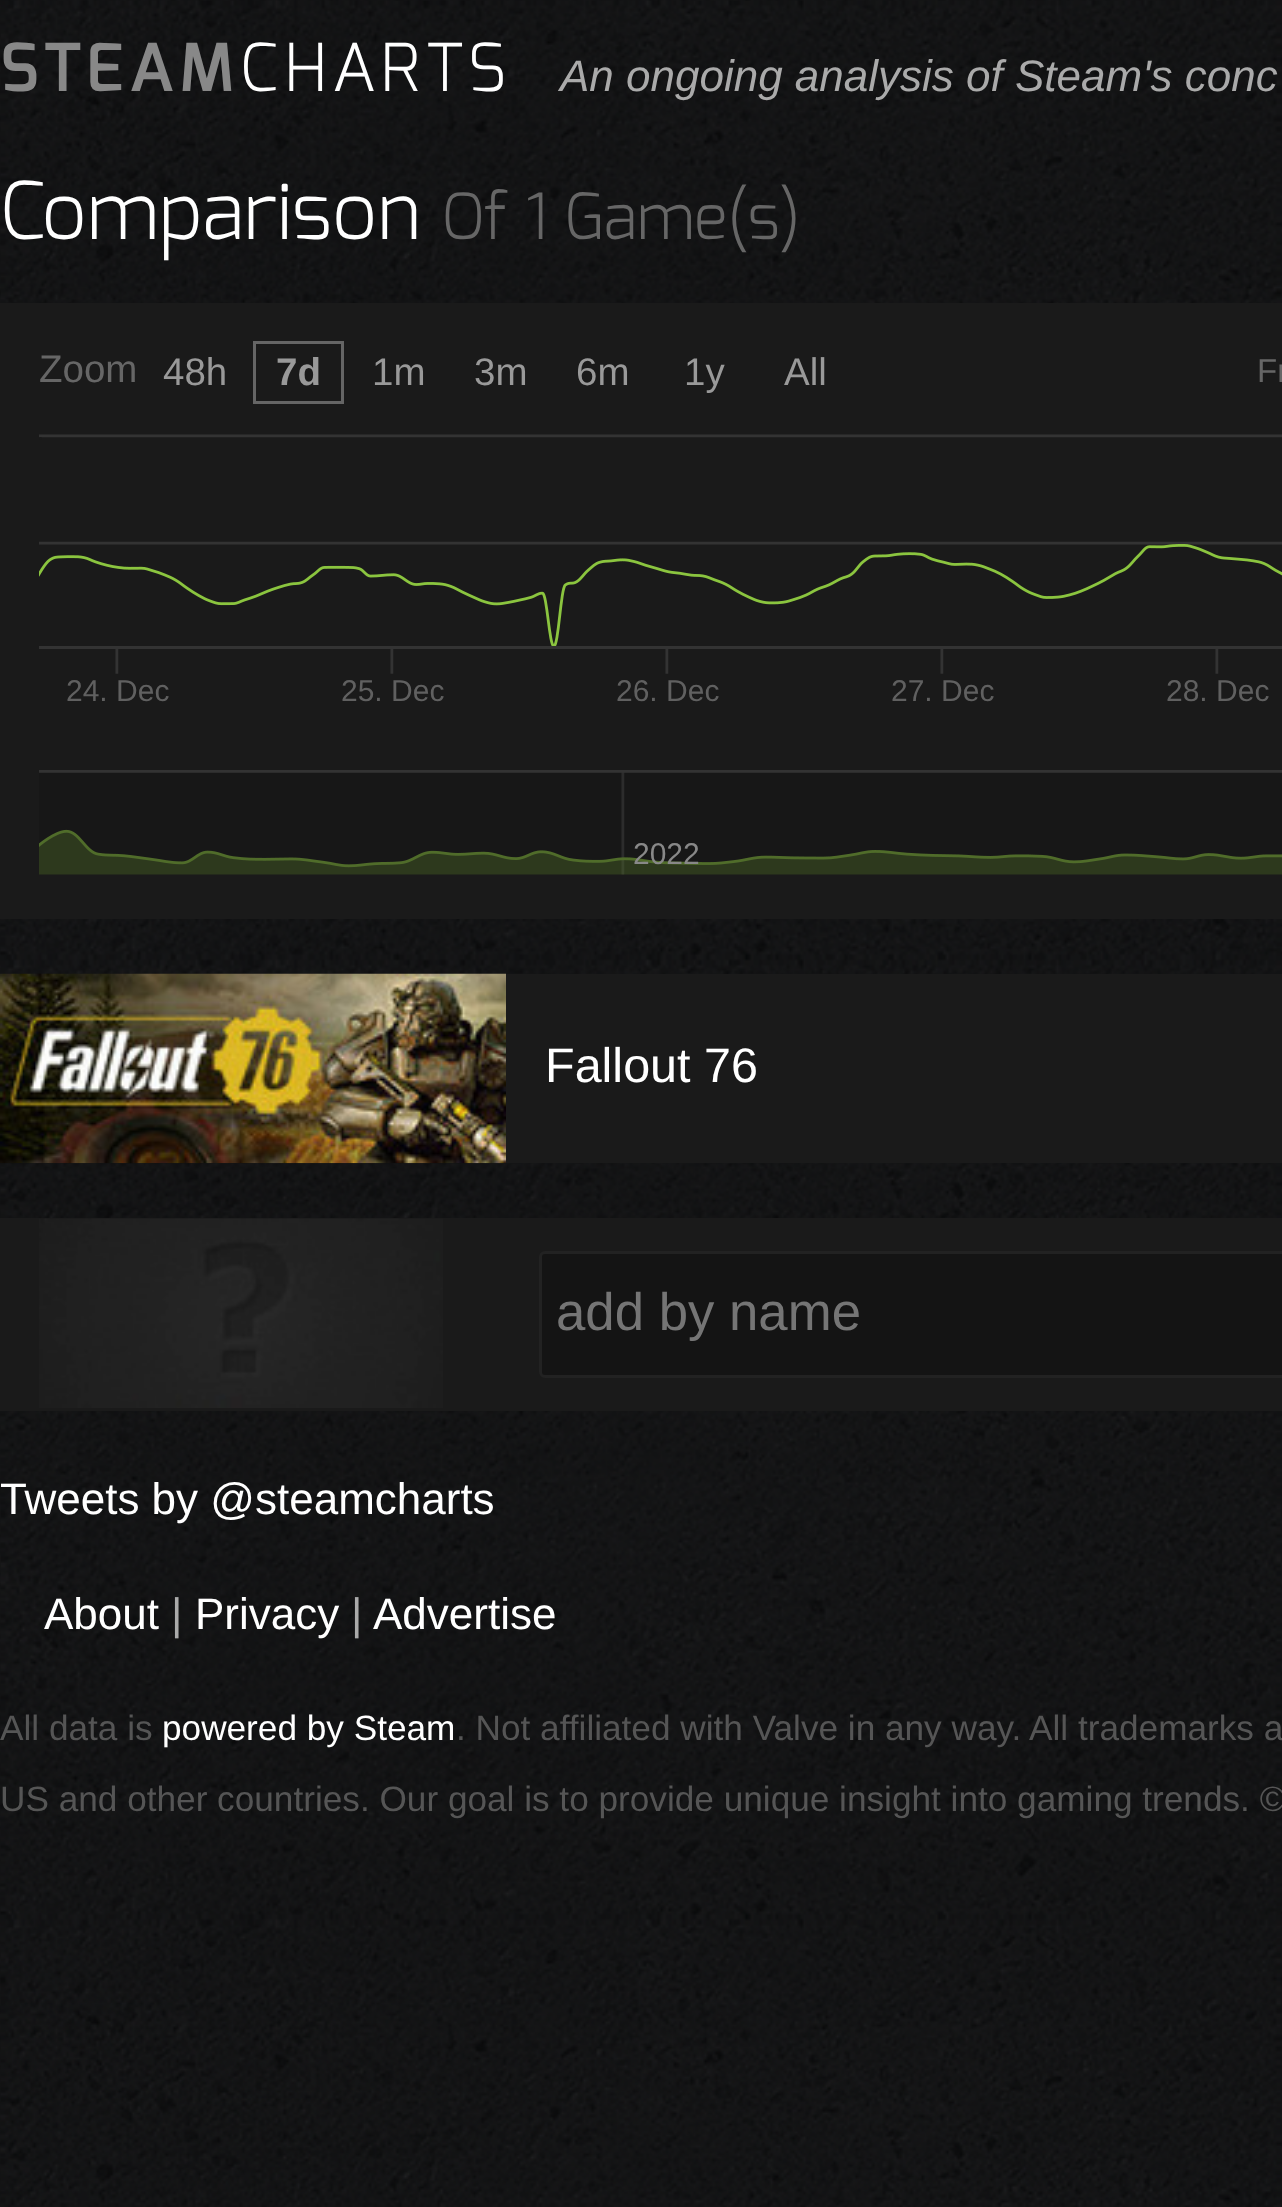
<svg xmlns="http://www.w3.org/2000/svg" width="1282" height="2207">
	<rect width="100%" height="100%" fill="#FFFFFF" />
	<image x="0" y="0" width="1282" height="2207" href="assets/img1.png" />
	<text x="0" y="91" font-family="Exo" font-size="66" font-weight="600" letter-spacing="5.5" fill="#888888">STEAM</text>
	<text x="240" y="91" font-family="Exo" font-size="66" font-weight="300" letter-spacing="5.5" fill="#FFFFFF">CHARTS</text>
	<text x="560" y="91" font-family="Liberation Sans" font-size="44" font-style="italic" fill="#AAAAAA">An ongoing analysis of Steam's conc</text>
	<text x="0" y="239" font-family="Exo" font-size="79.25" font-weight="300" fill="#FFFFFF">Comparison</text>
	<text x="441" y="239" font-family="Exo" font-size="63.5" font-weight="300" fill="#666666">Of 1 Game(s)</text>
	<rect x="0" y="303" width="1282" height="616" fill="#1A1A1A" />
	<text x="39" y="382" font-family="Liberation Sans" font-size="38.5" fill="#666666">Zoom</text>
	<text x="1257" y="382" font-family="Liberation Sans" font-size="33" fill="#666666">Fr</text>
	<image x="39" y="341" width="1243" height="534" href="assets/img2.png" />
	<text x="163" y="385" font-family="Liberation Sans" font-size="38.5" fill="#999999">48h</text>
	<text x="276" y="385" font-family="Liberation Sans" font-size="38.5" font-weight="700" fill="#999999">7d</text>
	<g font-family="Liberation Sans" font-size="38.5" fill="#999999">
		<text x="372" y="385">1m</text>
		<text x="474" y="385">3m</text>
		<text x="576" y="385">6m</text>
		<text x="684" y="385">1y</text>
		<text x="784" y="385">All</text>
	</g>
	<g font-family="Liberation Sans" font-size="30" fill="#606060">
		<text x="66" y="701">24. Dec</text>
		<text x="341" y="701">25. Dec</text>
		<text x="616" y="701">26. Dec</text>
		<text x="891" y="701">27. Dec</text>
		<text x="1166" y="701">28. Dec</text>
	</g>
	<text x="633" y="864" font-family="Liberation Sans" font-size="30" fill="#888888">2022</text>
	<circle cx="40.5" cy="438.5" r="1.5" fill="#1A1A1A" />
	<rect x="506" y="974" width="776" height="189" fill="#1A1A1A" />
	<image x="0" y="973" width="506" height="191" href="assets/img3.png" />
	<text x="545" y="1082" font-family="Liberation Sans" font-size="48.5" fill="#FFFFFF">Fallout 76</text>
	<rect x="0" y="1218" width="1282" height="193" fill="#1A1A1A" />
	<image x="39" y="1218" width="404" height="190" href="assets/img4.png" />
	<rect x="540.5" y="1252.5" width="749" height="124" rx="4.5" fill="#141414" stroke="#222222" stroke-width="3" />
	<text x="556" y="1330" font-family="Liberation Sans" font-size="52.75" fill="#757575">add by name</text>
	<g font-family="Liberation Sans" font-size="44" fill="#FFFFFF">
		<text x="0" y="1514">Tweets by @steamcharts</text>
		<text x="44" y="1629">About</text>
	</g>
	<text x="171" y="1629" font-family="Liberation Sans" font-size="44" fill="#AAAAAA">|</text>
	<text x="195" y="1629" font-family="Liberation Sans" font-size="44" fill="#FFFFFF">Privacy</text>
	<text x="351" y="1629" font-family="Liberation Sans" font-size="44" fill="#AAAAAA">|</text>
	<text x="373" y="1629" font-family="Liberation Sans" font-size="44" fill="#FFFFFF">Advertise</text>
	<text x="0" y="1740" font-family="Liberation Sans" font-size="35.2" fill="#555555">All data is</text>
	<text x="162" y="1740" font-family="Liberation Sans" font-size="35.2" fill="#FFFFFF">powered by Steam</text>
	<g font-family="Liberation Sans" font-size="35.2" fill="#555555">
		<text x="456" y="1740">. Not affiliated with Valve in any way. All trademarks a</text>
		<text x="0" y="1811">US and other countries. Our goal is to provide unique insight into gaming trends. ©</text>
	</g>
</svg>
